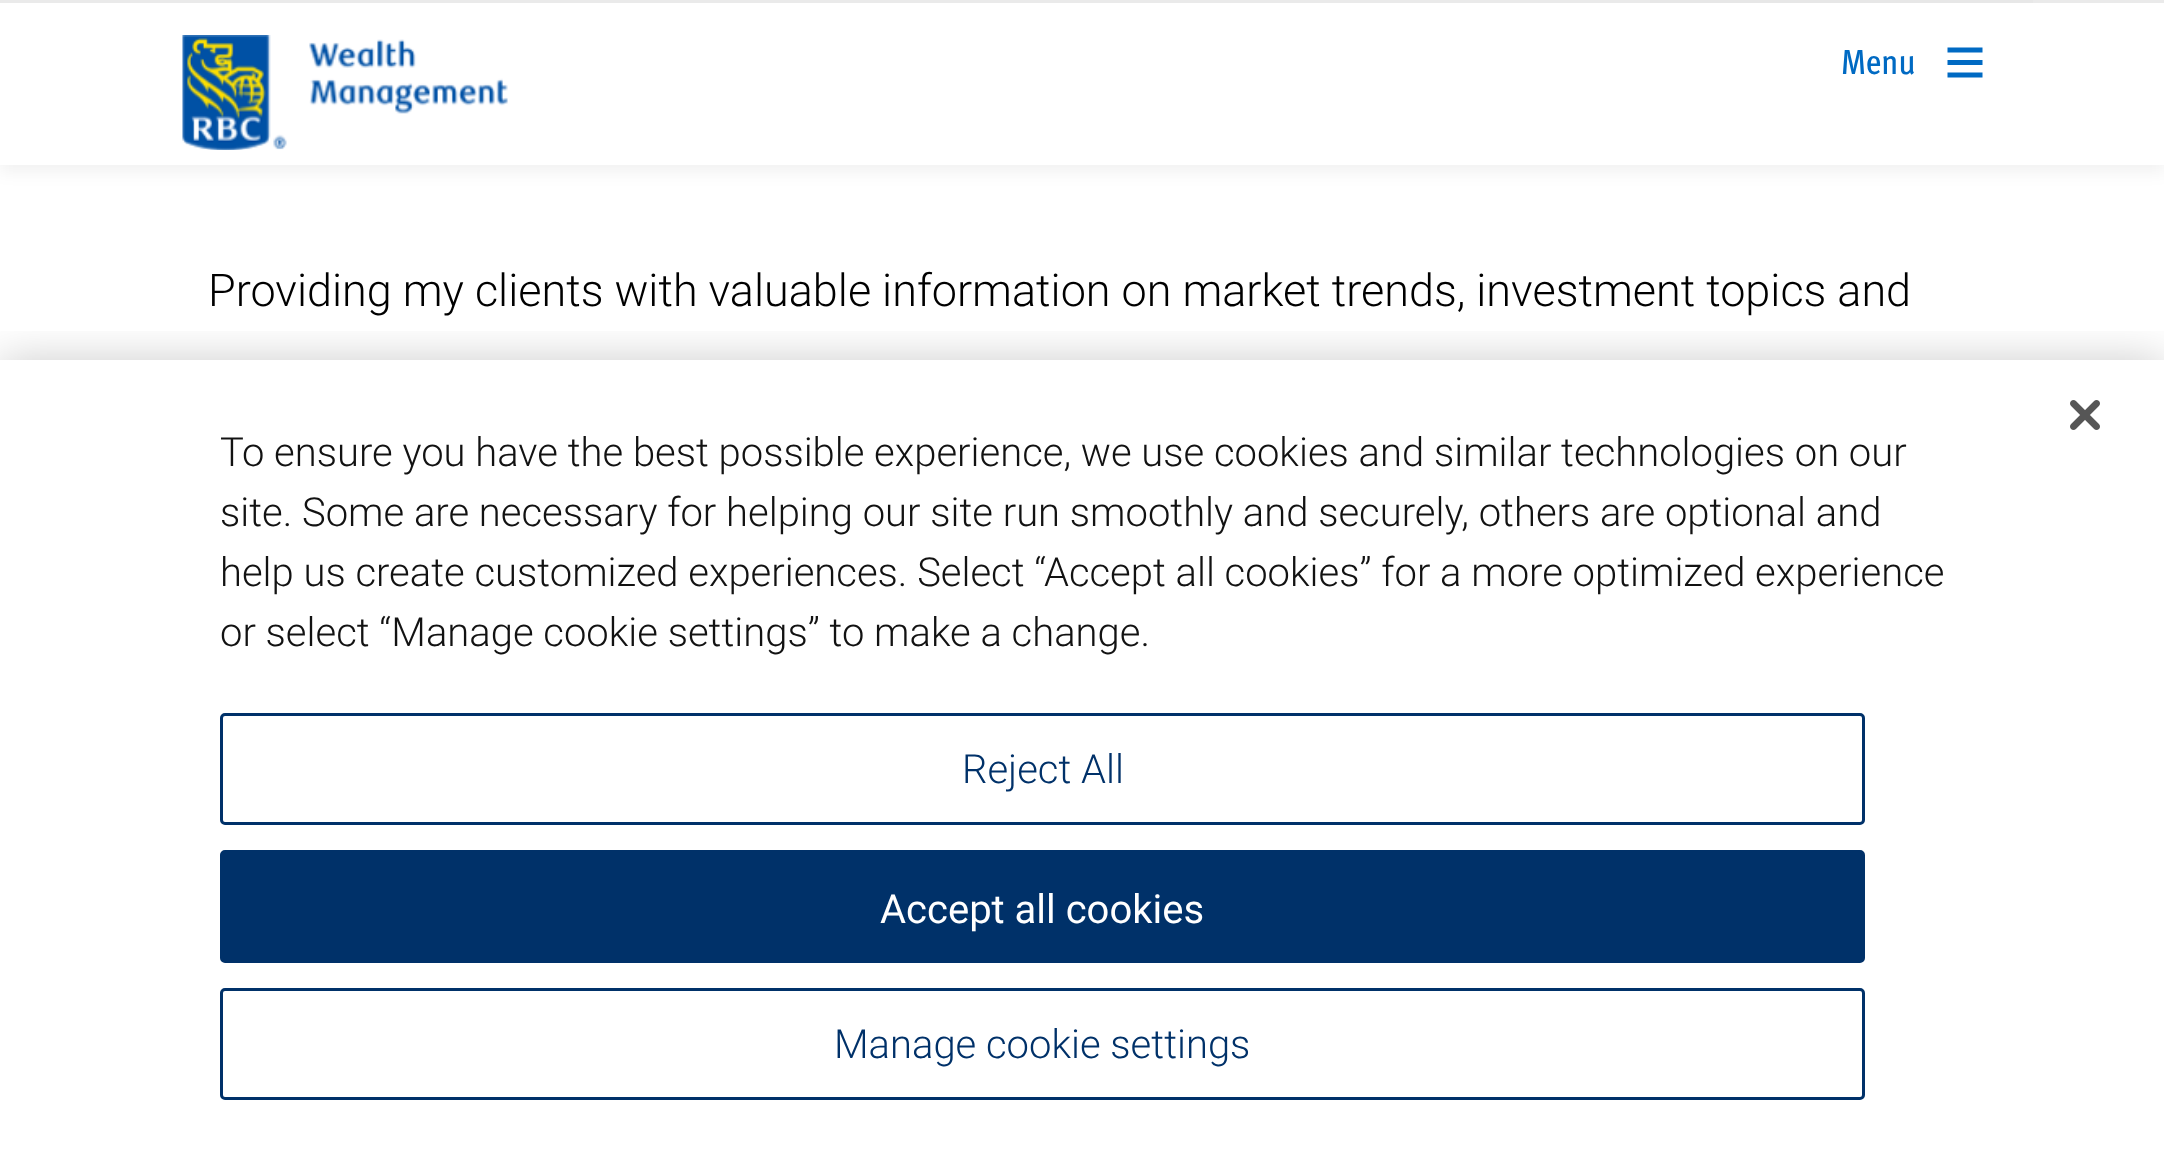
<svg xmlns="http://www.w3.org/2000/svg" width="2164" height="1172">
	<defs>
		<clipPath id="clip1"><rect x="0" y="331" width="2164" height="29" /></clipPath>
	</defs>
	<rect width="100%" height="100%" fill="#FFFFFF" />
	<rect x="0" y="8" width="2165" height="165" fill="#000000" fill-opacity="0.05" filter="blur(7.5px)" />
	<rect x="0" y="3" width="2164" height="162" fill="#FFFFFF" />
	<rect x="0" y="0" width="2164" height="3" fill="#EAEAEA" />
	<rect x="1650" y="0" width="383" height="3" fill="#E7E7E7" />
	<image x="182" y="35" width="326" height="115" href="assets/img1.png" />
	<text x="1841" y="74" font-family="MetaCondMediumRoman" font-size="35" font-weight="500" fill="#006AC3">Menu</text>
	<path d="M1982.5 72.5V77.5H1947.5V72.5ZM1982.5 60V65H1947.5V60ZM1982.5 47.5V52.5H1947.5V47.5Z" fill="#006AC3" />
	<text x="208" y="306" font-family="Roboto" font-size="45" font-weight="300" fill="#000000">Providing my clients with valuable information on market trends, investment topics and</text>
	<g clip-path="url(#clip1)">
		<rect x="0" y="360" width="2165" height="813" fill="#000000" fill-opacity="0.2" filter="blur(22.5px)" />
	</g>
	<image x="2070" y="400" width="30" height="30" href="assets/img2.png" />
	<g font-family="Roboto" font-size="40" font-weight="300" fill="#121212">
		<text x="220" y="466">To ensure you have the best possible experience, we use cookies and similar technologies on our</text>
		<text x="220" y="526">site. Some are necessary for helping our site run smoothly and securely, others are optional and</text>
		<text x="220" y="586">help us create customized experiences. Select “Accept all cookies” for a more optimized experience</text>
		<text x="220" y="646">or select “Manage cookie settings” to make a change.</text>
	</g>
	<rect x="221.5" y="714.5" width="1642" height="109" rx="3.5" fill="none" stroke="#003169" stroke-width="3" />
	<text x="962" y="783" font-family="Roboto" font-size="40" font-weight="300" fill="#003169">Reject All</text>
	<rect x="221.5" y="851.5" width="1642" height="110" rx="3.5" fill="#003169" stroke="#003169" stroke-width="3" />
	<text x="880" y="923" font-family="Roboto" font-size="40" fill="#FFFFFF">Accept all cookies</text>
	<rect x="221.5" y="989.5" width="1642" height="109" rx="3.5" fill="none" stroke="#003169" stroke-width="3" />
	<text x="834" y="1058" font-family="Roboto" font-size="40" font-weight="300" fill="#003169">Manage cookie settings</text>
</svg>
